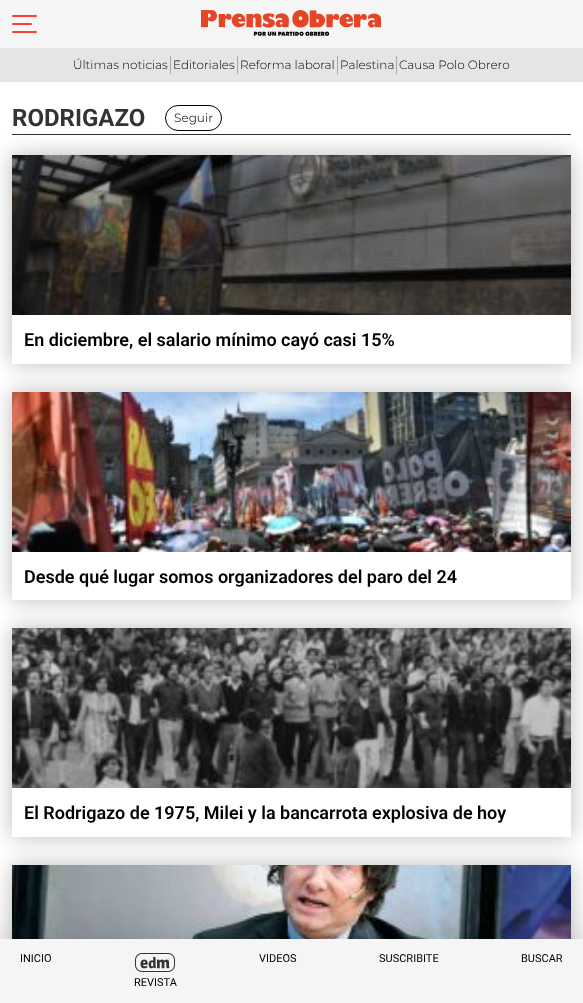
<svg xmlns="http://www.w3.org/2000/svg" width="583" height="1003">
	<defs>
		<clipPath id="clip1"><path d="M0 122H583V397H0ZM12 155H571V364H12Z" clip-rule="evenodd" /></clipPath>
		<clipPath id="clip2"><path d="M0 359H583V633H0ZM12 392H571V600H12Z" clip-rule="evenodd" /></clipPath>
		<clipPath id="clip3"><path d="M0 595H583V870H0ZM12 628H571V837H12Z" clip-rule="evenodd" /></clipPath>
	</defs>
	<rect width="100%" height="100%" fill="#FFFFFF" />
	<rect x="0" y="0" width="583" height="48" fill="#F5F5F5" />
	<rect x="12" y="15" width="25" height="2" rx="1" fill="#F44336" />
	<rect x="12" y="23" width="20" height="2" rx="1" fill="#F44336" />
	<rect x="12" y="31" width="25" height="2" rx="1" fill="#F44336" />
	<image x="201" y="10" width="180" height="26" href="assets/img1.png" />
	<rect x="0" y="48" width="583" height="34" fill="#E5E5E5" />
	<text x="73" y="69" font-family="Montserrat" font-size="12" font-weight="300" fill="#000000">Últimas noticias</text>
	<rect x="170" y="56" width="1" height="18" fill="#A9A9A9" />
	<text x="173" y="69" font-family="Montserrat" font-size="12" font-weight="300" fill="#000000">Editoriales</text>
	<rect x="237" y="56" width="1" height="18" fill="#A9A9A9" />
	<text x="240" y="69" font-family="Montserrat" font-size="12" font-weight="300" fill="#000000">Reforma laboral</text>
	<rect x="337" y="56" width="1" height="18" fill="#A9A9A9" />
	<text x="340" y="69" font-family="Montserrat" font-size="12" font-weight="300" fill="#000000">Palestina</text>
	<rect x="396" y="56" width="1" height="18" fill="#A9A9A9" />
	<text x="399" y="69" font-family="Montserrat" font-size="12" font-weight="300" fill="#000000">Causa Polo Obrero</text>
	<rect x="12" y="134" width="559" height="1" fill="#333333" />
	<text x="12" y="126" font-family="Roboto" font-size="24" font-weight="700" fill="#333333">RODRIGAZO</text>
	<rect x="165.5" y="105.5" width="56" height="25" rx="12.5" fill="none" stroke="#000000" />
	<text x="174" y="122" font-family="Montserrat" font-size="12" fill="#333333">Seguir</text>
	<g clip-path="url(#clip1)">
		<rect x="12" y="155" width="559" height="209" fill="#000000" fill-opacity="0.27" filter="blur(10.5px)" />
	</g>
	<image x="12" y="155" width="559" height="160" href="assets/img2.png" />
	<text x="24" y="346" font-family="Roboto" font-size="18" font-weight="600" fill="#000000">En diciembre, el salario mínimo cayó casi 15%</text>
	<g clip-path="url(#clip2)">
		<rect x="12" y="392" width="559" height="208" fill="#000000" fill-opacity="0.27" filter="blur(10.5px)" />
	</g>
	<image x="12" y="392" width="559" height="160" href="assets/img3.png" />
	<text x="24" y="583" font-family="Roboto" font-size="18" font-weight="600" fill="#000000">Desde qué lugar somos organizadores del paro del 24</text>
	<g clip-path="url(#clip3)">
		<rect x="12" y="628" width="559" height="209" fill="#000000" fill-opacity="0.27" filter="blur(10.5px)" />
	</g>
	<image x="12" y="628" width="559" height="160" href="assets/img4.png" />
	<text x="24" y="819" font-family="Roboto" font-size="18" font-weight="600" fill="#000000">El Rodrigazo de 1975, Milei y la bancarrota explosiva de hoy</text>
	<rect x="12" y="865" width="559" height="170" fill="#000000" fill-opacity="0.27" filter="blur(10.5px)" />
	<image x="12" y="865" width="559" height="74" href="assets/img5.png" />
	<rect x="-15" y="959" width="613" height="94" fill="#000000" fill-opacity="0.3" filter="blur(30px)" />
	<rect x="0" y="939" width="583" height="64" fill="#F5F5F5" />
	<g font-family="Roboto" font-size="11" fill="#000000">
		<text x="20" y="962">INICIO</text>
		<text x="259" y="962">VIDEOS</text>
		<text x="379" y="962">SUSCRIBITE</text>
		<text x="521" y="962">BUSCAR</text>
	</g>
	<image x="135" y="953" width="40" height="19" href="assets/img6.png" />
	<text x="134" y="986" font-family="Roboto" font-size="11" fill="#000000">REVISTA</text>
</svg>
